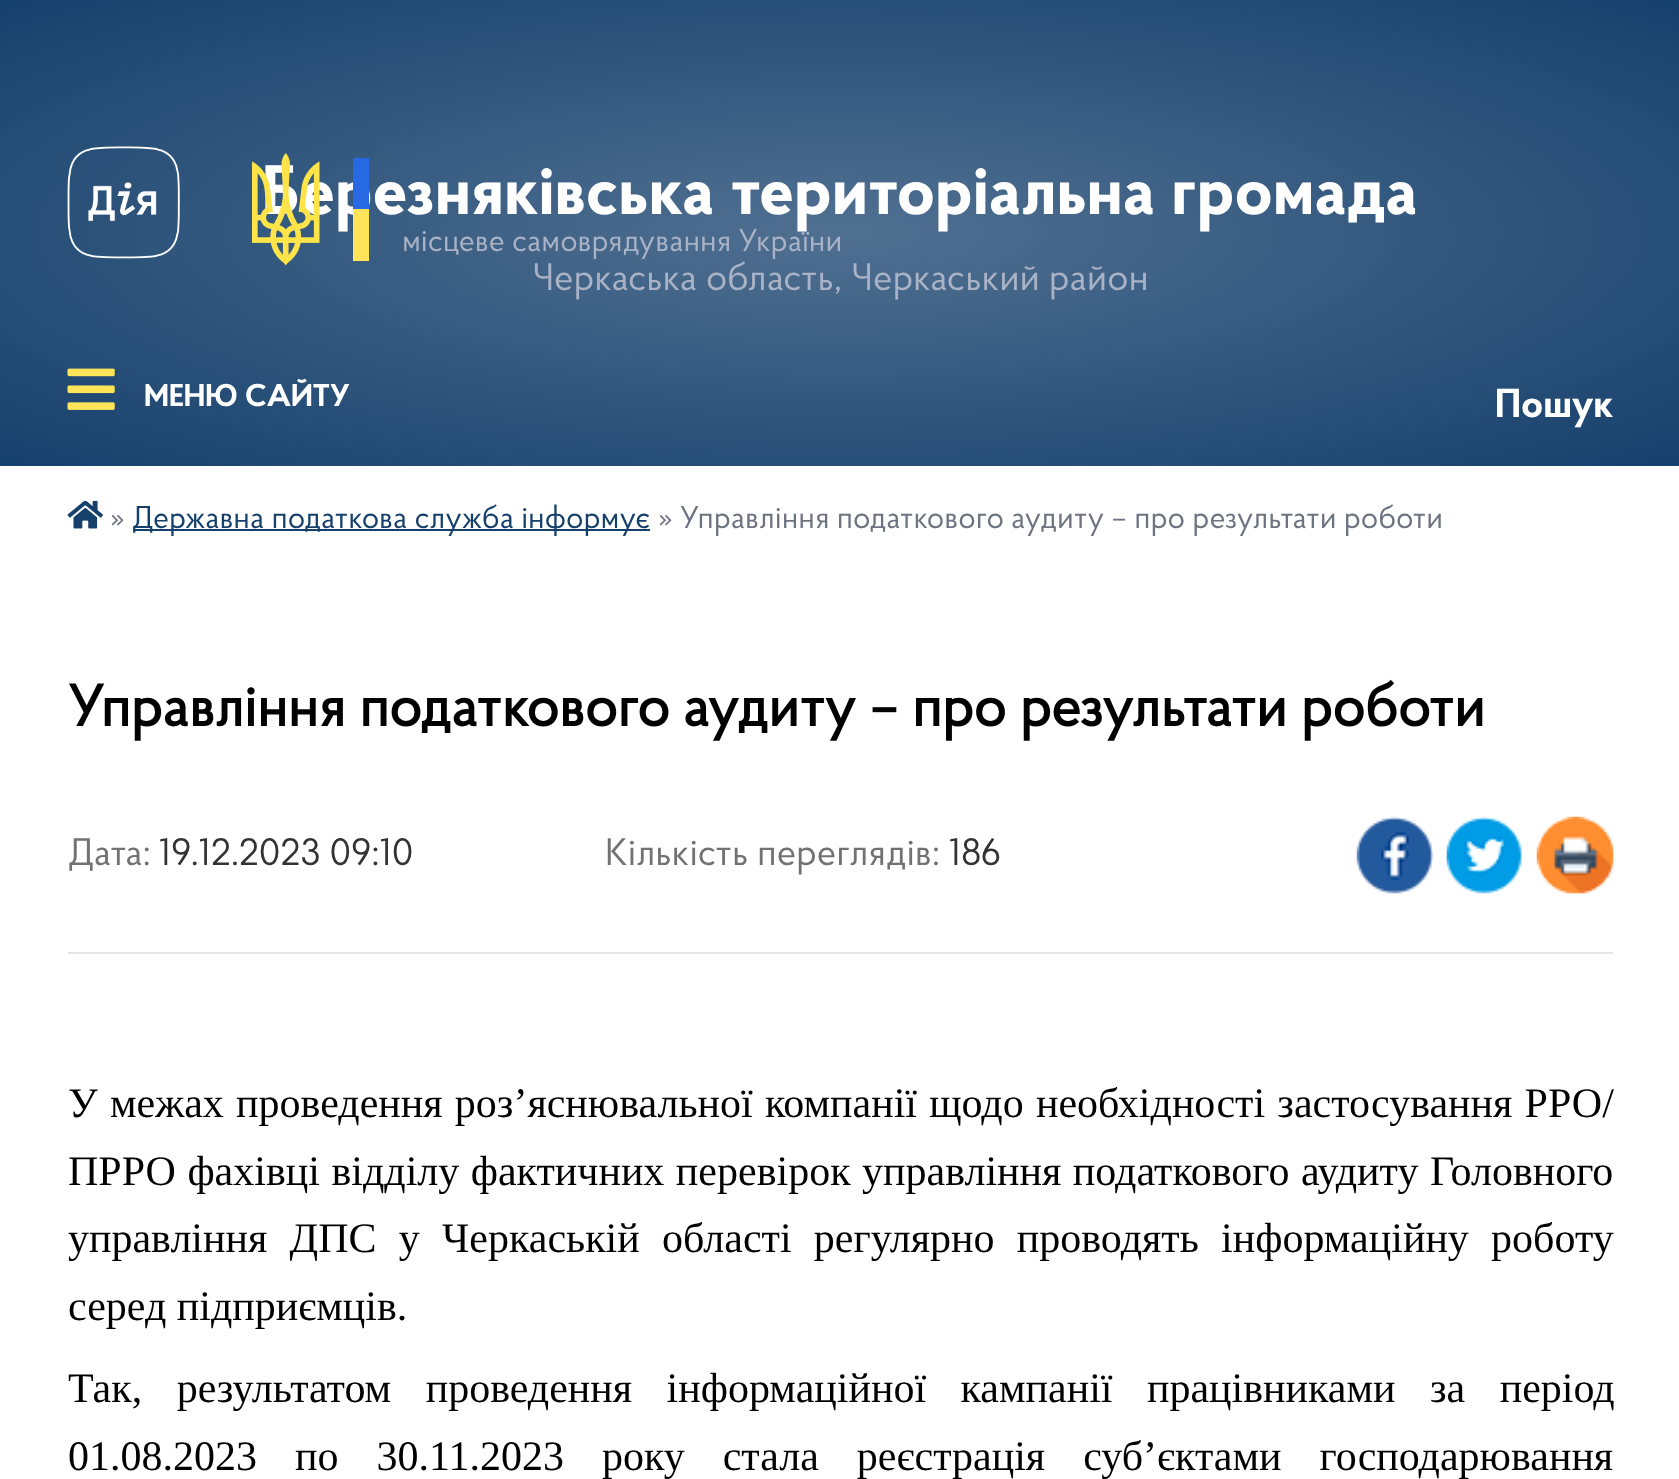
<svg xmlns="http://www.w3.org/2000/svg" width="1679" height="1479">
	<defs>
		<radialGradient id="g1" gradientUnits="userSpaceOnUse" cx="0" cy="0" r="1" gradientTransform="matrix(1188 0 0 329 840 233)"><stop offset="0" stop-color="#507091" /><stop offset="1" stop-color="#16406C" /></radialGradient>
	</defs>
	<rect width="100%" height="100%" fill="#FFFFFF" />
	<rect x="0" y="0" width="1679" height="466" fill="url(#g1)" />
	<text x="262" y="214" font-family="'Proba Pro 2'" font-size="69.75" font-weight="700" fill="#FFFFFF">Березняківська територіальна громада</text>
	<text x="532" y="290" font-family="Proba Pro" font-size="38.25" fill="#AAB3C6">Черкаська область, Черкаський район</text>
	<image x="67" y="146" width="113" height="113" href="assets/img1.png" />
	<image x="252" y="153" width="68" height="113" href="assets/img2.png" />
	<rect x="353" y="158" width="16" height="51" fill="#2669E3" />
	<rect x="353" y="209" width="16" height="52" fill="#FFE358" />
	<text x="402" y="251" font-family="Proba Pro" font-size="31.5" fill="#AAB3C6">місцеве самоврядування України</text>
	<image x="67" y="368" width="48" height="42" href="assets/img3.png" />
	<text x="144" y="406" font-family="'Proba Pro 2'" font-size="31.5" font-weight="700" fill="#FFFFFF">МЕНЮ САЙТУ</text>
	<text x="1495" y="417" font-family="'Proba Pro 2'" font-size="40.5" font-weight="700" fill="#FFFFFF">Пошук</text>
	<image x="67" y="500" width="36" height="29" href="assets/img4.png" />
	<text x="110" y="528" font-family="Proba Pro" font-size="31.5" fill="#6D7381">»</text>
	<rect x="133" y="529" width="517" height="2" fill="#16406C" />
	<text x="132" y="528" font-family="Proba Pro" font-size="31.5" fill="#16406C">Державна податкова служба інформує</text>
	<text x="658" y="528" font-family="Proba Pro" font-size="31.5" fill="#6D7381">» Управління податкового аудиту – про результати роботи</text>
	<text x="68" y="726" font-family="Proba Pro" font-size="58.5" font-weight="700" fill="#000000">Управління податкового аудиту – про результати роботи</text>
	<text x="68" y="865" font-family="Proba Pro" font-size="38.25" fill="#727272">Дата:</text>
	<text x="159" y="865" font-family="Proba Pro" font-size="38.25" fill="#333333">19.12.2023 09:10</text>
	<text x="605" y="865" font-family="Proba Pro" font-size="38.25" fill="#727272">Кількість переглядів:</text>
	<text x="949" y="865" font-family="Proba Pro" font-size="38.25" fill="#333333">186</text>
	<image x="1356" y="816" width="78" height="78" href="assets/img5.png" />
	<image x="1446" y="816" width="76" height="78" href="assets/img6.png" />
	<image x="1536" y="816" width="78" height="78" href="assets/img7.png" />
	<rect x="68" y="952" width="1545" height="2" fill="#E5E5E5" />
	<g font-family="Liberation Serif" font-size="42" fill="#000000">
		<text x="68" y="1117" word-spacing="1.75">У межах проведення роз’яснювальної компанії щодо необхідності застосування РРО/</text>
		<text x="68" y="1185" word-spacing="1">ПРРО фахівці відділу фактичних перевірок управління податкового аудиту Головного</text>
		<text x="68" y="1252" word-spacing="11.75">управління ДПС у Черкаській області регулярно проводять інформаційну роботу</text>
		<text x="68" y="1320">серед підприємців.</text>
		<text x="68" y="1402" word-spacing="24">Так, результатом проведення інформаційної кампанії працівниками за період</text>
		<text x="68" y="1470" word-spacing="27.5">01.08.2023 по 30.11.2023 року стала реєстрація суб’єктами господарювання</text>
	</g>
</svg>
